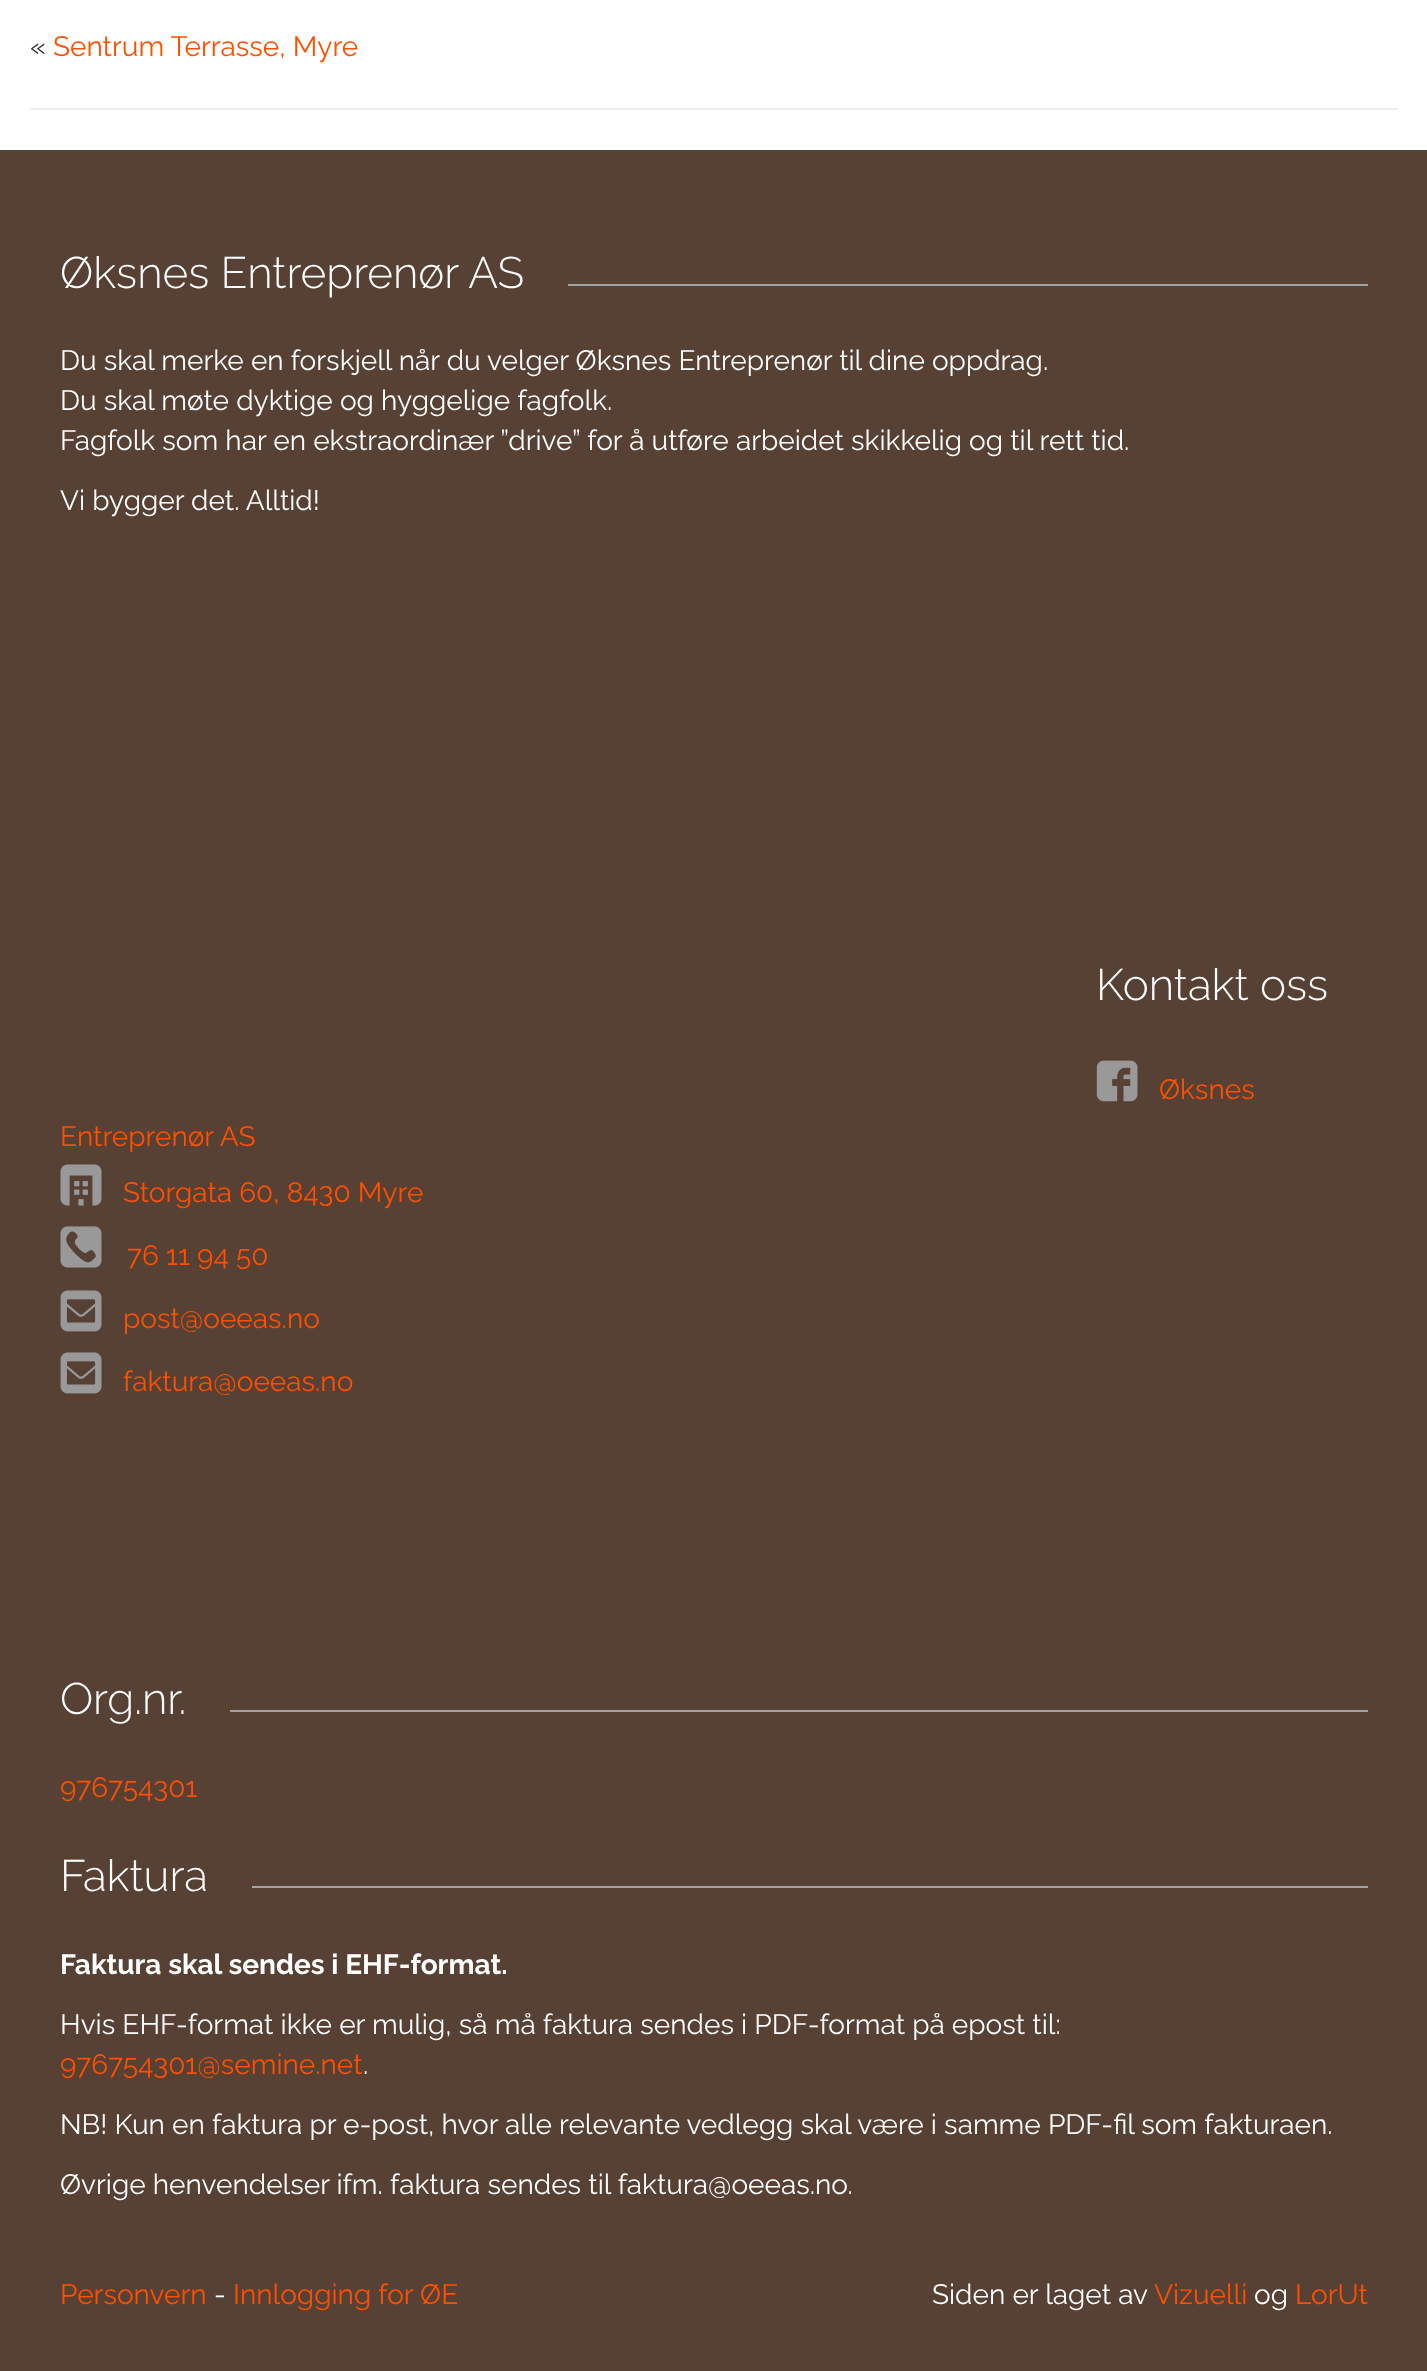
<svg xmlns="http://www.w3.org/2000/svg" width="1427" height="2371">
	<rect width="100%" height="100%" fill="#FFFFFF" />
	<text x="30" y="56" font-family="Raleway" font-size="28" fill="#333333">«</text>
	<text x="53" y="56" font-family="Raleway" font-size="28" fill="#FE5000">Sentrum Terrasse, Myre</text>
	<rect x="30" y="108" width="1368" height="2" fill="#EEEEEE" />
	<rect x="0" y="150" width="1427" height="2221" fill="#574034" />
	<text x="60" y="288" font-family="Raleway" font-size="44" font-weight="300" fill="#FFFFFF">Øksnes Entreprenør AS</text>
	<rect x="568" y="284" width="800" height="2" fill="#A3A3A3" />
	<g font-family="Raleway" font-size="28" fill="#FFFFFF">
		<text x="60" y="370">Du skal merke en forskjell når du velger Øksnes Entreprenør til dine oppdrag.</text>
		<text x="60" y="410">Du skal møte dyktige og hyggelige fagfolk.</text>
		<text x="60" y="450">Fagfolk som har en ekstraordinær ”drive” for å utføre arbeidet skikkelig og til rett tid.</text>
		<text x="60" y="510">Vi bygger det. Alltid!</text>
	</g>
	<text x="1096" y="1000" font-family="Raleway" font-size="44" font-weight="300" fill="#FFFFFF">Kontakt oss</text>
	<image x="1096" y="1060" width="42" height="42" href="assets/img1.png" />
	<g font-family="Raleway" font-size="28" fill="#FE5000">
		<text x="1159" y="1099">Øksnes</text>
		<text x="60" y="1146">Entreprenør AS</text>
	</g>
	<image x="60" y="1164" width="42" height="42" href="assets/img2.png" />
	<text x="123" y="1202" font-family="Raleway" font-size="28" fill="#FE5000">Storgata 60, 8430 Myre</text>
	<image x="60" y="1226" width="42" height="42" href="assets/img3.png" />
	<text x="127" y="1265" font-family="Raleway" font-size="28" fill="#FE5000">76 11 94 50</text>
	<image x="60" y="1290" width="42" height="42" href="assets/img4.png" />
	<text x="123" y="1328" font-family="Raleway" font-size="28" fill="#FE5000">post@oeeas.no</text>
	<image x="60" y="1352" width="42" height="42" href="assets/img4.png" />
	<text x="123" y="1391" font-family="Raleway" font-size="28" fill="#FE5000">faktura@oeeas.no</text>
	<text x="60" y="1714" font-family="Raleway" font-size="44" font-weight="300" fill="#FFFFFF">Org.nr.</text>
	<rect x="230" y="1710" width="1138" height="2" fill="#A3A3A3" />
	<text x="60" y="1797" font-family="Raleway" font-size="28" fill="#FE5000">976754301</text>
	<text x="60" y="1891" font-family="Raleway" font-size="44" font-weight="300" fill="#FFFFFF">Faktura</text>
	<rect x="252" y="1886" width="1116" height="2" fill="#A3A3A3" />
	<text x="60" y="1974" font-family="Raleway" font-size="28" font-weight="700" fill="#FFFFFF">Faktura skal sendes i EHF-format.</text>
	<text x="60" y="2034" font-family="Raleway" font-size="28" fill="#FFFFFF">Hvis EHF-format ikke er mulig, så må faktura sendes i PDF-format på epost til:</text>
	<text x="60" y="2074" font-family="Raleway" font-size="28" fill="#FE5000">976754301@semine.net</text>
	<g font-family="Raleway" font-size="28" fill="#FFFFFF">
		<text x="363" y="2074">.</text>
		<text x="60" y="2134">NB! Kun en faktura pr e-post, hvor alle relevante vedlegg skal være i samme PDF-fil som fakturaen.</text>
		<text x="60" y="2194">Øvrige henvendelser ifm. faktura sendes til faktura@oeeas.no.</text>
	</g>
	<text x="60" y="2304" font-family="Raleway" font-size="28" fill="#FE5000">Personvern</text>
	<text x="214" y="2304" font-family="Raleway" font-size="28" fill="#FFFFFF">-</text>
	<text x="233" y="2304" font-family="Raleway" font-size="28" fill="#FE5000">Innlogging for ØE</text>
	<text x="932" y="2304" font-family="Raleway" font-size="28" fill="#FFFFFF">Siden er laget av</text>
	<text x="1154" y="2304" font-family="Raleway" font-size="28" fill="#FE5000">Vizuelli</text>
	<text x="1254" y="2304" font-family="Raleway" font-size="28" fill="#FFFFFF">og</text>
	<text x="1295" y="2304" font-family="Raleway" font-size="28" fill="#FE5000">LorUt</text>
</svg>
